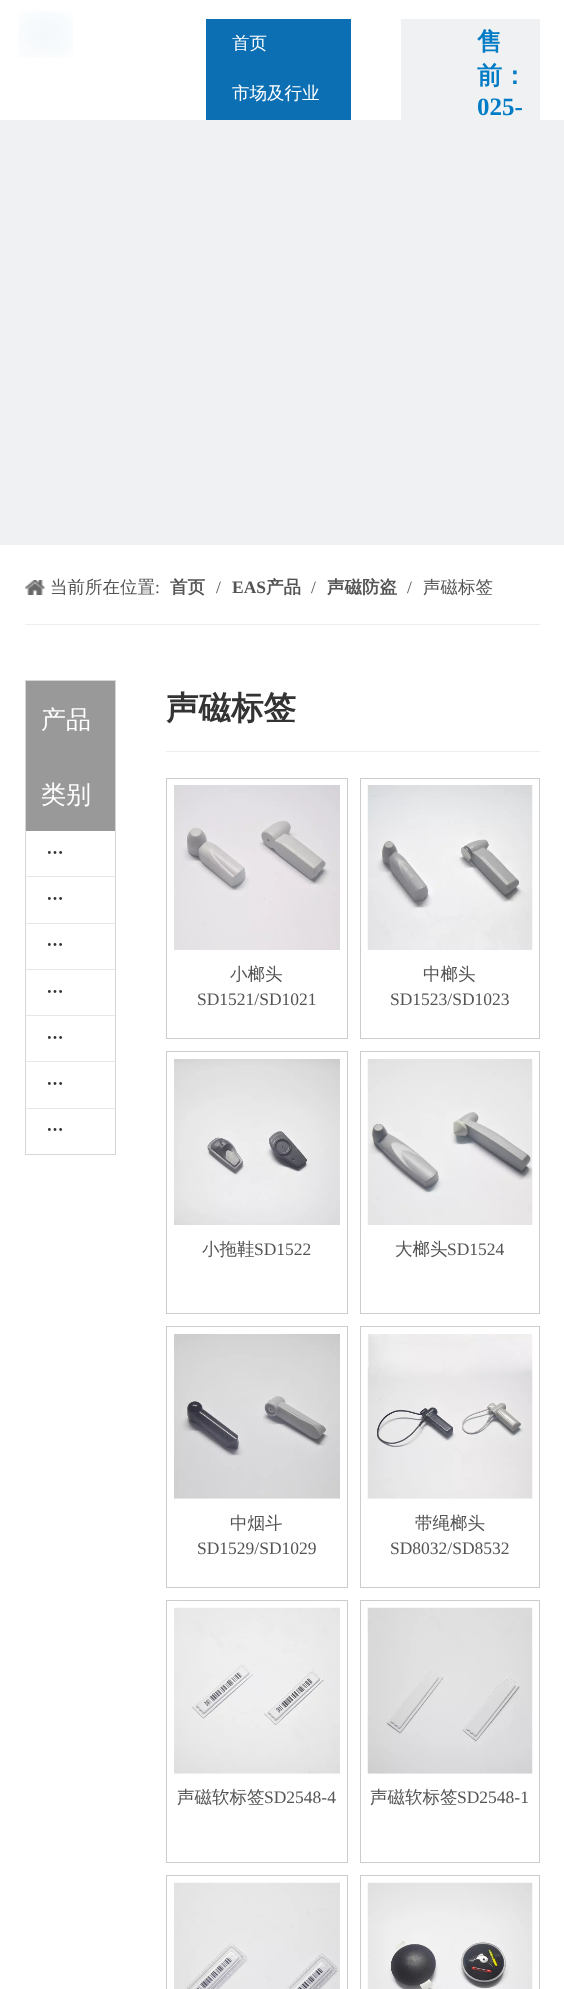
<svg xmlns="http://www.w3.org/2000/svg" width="564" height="1989">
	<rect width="100%" height="100%" fill="#FFFFFF" />
	<image x="18" y="11" width="55" height="47" href="assets/img1.png" />
	<rect x="206" y="19" width="145" height="101" fill="#0C6FB3" />
	<g font-family="WenQuanYi Zen Hei" font-size="17.5" font-weight="500" fill="#FFFFFF">
		<text x="232" y="49">首页</text>
		<text x="232" y="99">市场及行业</text>
	</g>
	<rect x="401" y="19" width="139" height="101" fill="#F0F1F2" />
	<g font-family="WenQuanYi Zen Hei" font-size="25" font-weight="700" fill="#007BC5">
		<text x="477" y="50">售</text>
		<text x="477" y="84">前：</text>
	</g>
	<text x="477" y="115" font-family="Liberation Serif" font-size="25" font-weight="700" fill="#007BC5">025-</text>
	<rect x="0" y="120" width="564" height="425" fill="#F0F1F2" />
	<rect x="25" y="624" width="515" height="1" fill="#EEEEEE" />
	<image x="25" y="580" width="20" height="15" href="assets/img2.png" />
	<text x="50" y="593" font-family="WenQuanYi Zen Hei" font-size="17.5" font-weight="500" fill="#545454">当前所在位置</text>
	<text x="155" y="593" font-family="Liberation Serif" font-size="17.5" fill="#545454">:</text>
	<text x="170" y="593" font-family="WenQuanYi Zen Hei" font-size="17.5" font-weight="700" fill="#545454">首页</text>
	<text x="216" y="593" font-family="Liberation Serif" font-size="17.5" fill="#545454">/</text>
	<text x="232" y="593" font-family="Liberation Serif" font-size="17.5" font-weight="700" fill="#545454">EAS</text>
	<text x="266" y="593" font-family="WenQuanYi Zen Hei" font-size="17.5" font-weight="700" fill="#545454">产品</text>
	<text x="311" y="593" font-family="Liberation Serif" font-size="17.5" fill="#545454">/</text>
	<text x="327" y="593" font-family="WenQuanYi Zen Hei" font-size="17.5" font-weight="700" fill="#545454">声磁防盗</text>
	<text x="407" y="593" font-family="Liberation Serif" font-size="17.5" fill="#545454">/</text>
	<text x="423" y="593" font-family="WenQuanYi Zen Hei" font-size="17.5" font-weight="500" fill="#545454">声磁标签</text>
	<rect x="25.5" y="680.5" width="90" height="474" fill="none" stroke="#D6D6D6" />
	<rect x="26" y="681" width="89" height="150" fill="#999999" />
	<g font-family="WenQuanYi Zen Hei" font-size="25" font-weight="500" fill="#FFFFFF">
		<text x="41" y="728">产品</text>
		<text x="41" y="803">类别</text>
	</g>
	<text x="46" y="859" font-family="WenQuanYi Zen Hei" font-size="17.5" font-weight="700" fill="#333333">…</text>
	<rect x="26" y="876" width="89" height="1" fill="#E7E7E7" />
	<text x="46" y="905" font-family="WenQuanYi Zen Hei" font-size="17.5" font-weight="700" fill="#333333">…</text>
	<rect x="26" y="923" width="89" height="1" fill="#E7E7E7" />
	<text x="46" y="951" font-family="WenQuanYi Zen Hei" font-size="17.5" font-weight="700" fill="#333333">…</text>
	<rect x="26" y="969" width="89" height="1" fill="#E7E7E7" />
	<text x="46" y="998" font-family="WenQuanYi Zen Hei" font-size="17.5" font-weight="700" fill="#333333">…</text>
	<rect x="26" y="1015" width="89" height="1" fill="#E7E7E7" />
	<text x="46" y="1044" font-family="WenQuanYi Zen Hei" font-size="17.5" font-weight="700" fill="#333333">…</text>
	<rect x="26" y="1061" width="89" height="1" fill="#E7E7E7" />
	<text x="46" y="1090" font-family="WenQuanYi Zen Hei" font-size="17.5" font-weight="700" fill="#333333">…</text>
	<rect x="26" y="1108" width="89" height="1" fill="#E7E7E7" />
	<text x="46" y="1136" font-family="WenQuanYi Zen Hei" font-size="17.5" font-weight="700" fill="#333333">…</text>
	<rect x="166" y="751" width="374" height="1" fill="#EEEEEE" />
	<text x="166" y="719" font-family="WenQuanYi Zen Hei" font-size="32.5" font-weight="700" fill="#333333">声磁标签</text>
	<rect x="166.5" y="778.5" width="181" height="260" fill="none" stroke="#CCCCCC" />
	<image x="174" y="785" width="166" height="165" href="assets/img3.png" />
	<text x="230" y="980" font-family="WenQuanYi Zen Hei" font-size="17.5" font-weight="500" fill="#545454">小榔头</text>
	<text x="197" y="1005" font-family="Liberation Serif" font-size="17.5" fill="#545454">SD1521/SD1021</text>
	<rect x="360.5" y="778.5" width="179" height="260" fill="none" stroke="#CCCCCC" />
	<image x="367" y="785" width="166" height="165" href="assets/img4.png" />
	<text x="423" y="980" font-family="WenQuanYi Zen Hei" font-size="17.5" font-weight="500" fill="#545454">中榔头</text>
	<text x="390" y="1005" font-family="Liberation Serif" font-size="17.5" fill="#545454">SD1523/SD1023</text>
	<rect x="166.5" y="1051.5" width="181" height="262" fill="none" stroke="#CCCCCC" />
	<image x="174" y="1059" width="166" height="166" href="assets/img5.png" />
	<text x="202" y="1255" font-family="WenQuanYi Zen Hei" font-size="17.5" font-weight="500" fill="#545454">小拖鞋</text>
	<text x="254" y="1255" font-family="Liberation Serif" font-size="17.5" fill="#545454">SD1522</text>
	<rect x="360.5" y="1051.5" width="179" height="262" fill="none" stroke="#CCCCCC" />
	<image x="367" y="1059" width="166" height="166" href="assets/img6.png" />
	<text x="395" y="1255" font-family="WenQuanYi Zen Hei" font-size="17.5" font-weight="500" fill="#545454">大榔头</text>
	<text x="447" y="1255" font-family="Liberation Serif" font-size="17.5" fill="#545454">SD1524</text>
	<rect x="166.5" y="1326.5" width="181" height="261" fill="none" stroke="#CCCCCC" />
	<image x="174" y="1334" width="166" height="165" href="assets/img7.png" />
	<text x="230" y="1529" font-family="WenQuanYi Zen Hei" font-size="17.5" font-weight="500" fill="#545454">中烟斗</text>
	<text x="197" y="1554" font-family="Liberation Serif" font-size="17.5" fill="#545454">SD1529/SD1029</text>
	<rect x="360.5" y="1326.5" width="179" height="261" fill="none" stroke="#CCCCCC" />
	<image x="367" y="1334" width="166" height="165" href="assets/img8.png" />
	<text x="415" y="1529" font-family="WenQuanYi Zen Hei" font-size="17.5" font-weight="500" fill="#545454">带绳榔头</text>
	<text x="390" y="1554" font-family="Liberation Serif" font-size="17.5" fill="#545454">SD8032/SD8532</text>
	<rect x="166.5" y="1600.5" width="181" height="262" fill="none" stroke="#CCCCCC" />
	<image x="174" y="1607" width="166" height="167" href="assets/img9.png" />
	<text x="177" y="1803" font-family="WenQuanYi Zen Hei" font-size="17.5" font-weight="500" fill="#545454">声磁软标签</text>
	<text x="264" y="1803" font-family="Liberation Serif" font-size="17.5" fill="#545454">SD2548-4</text>
	<rect x="360.5" y="1600.5" width="179" height="262" fill="none" stroke="#CCCCCC" />
	<image x="367" y="1607" width="166" height="167" href="assets/img10.png" />
	<text x="370" y="1803" font-family="WenQuanYi Zen Hei" font-size="17.5" font-weight="500" fill="#545454">声磁软标签</text>
	<text x="457" y="1803" font-family="Liberation Serif" font-size="17.5" fill="#545454">SD2548-1</text>
	<rect x="166.5" y="1875.5" width="181" height="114" fill="none" stroke="#CCCCCC" />
	<image x="174" y="1882" width="166" height="107" href="assets/img11.png" />
	<rect x="360.5" y="1875.5" width="179" height="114" fill="none" stroke="#CCCCCC" />
	<image x="367" y="1882" width="166" height="107" href="assets/img12.png" />
</svg>
